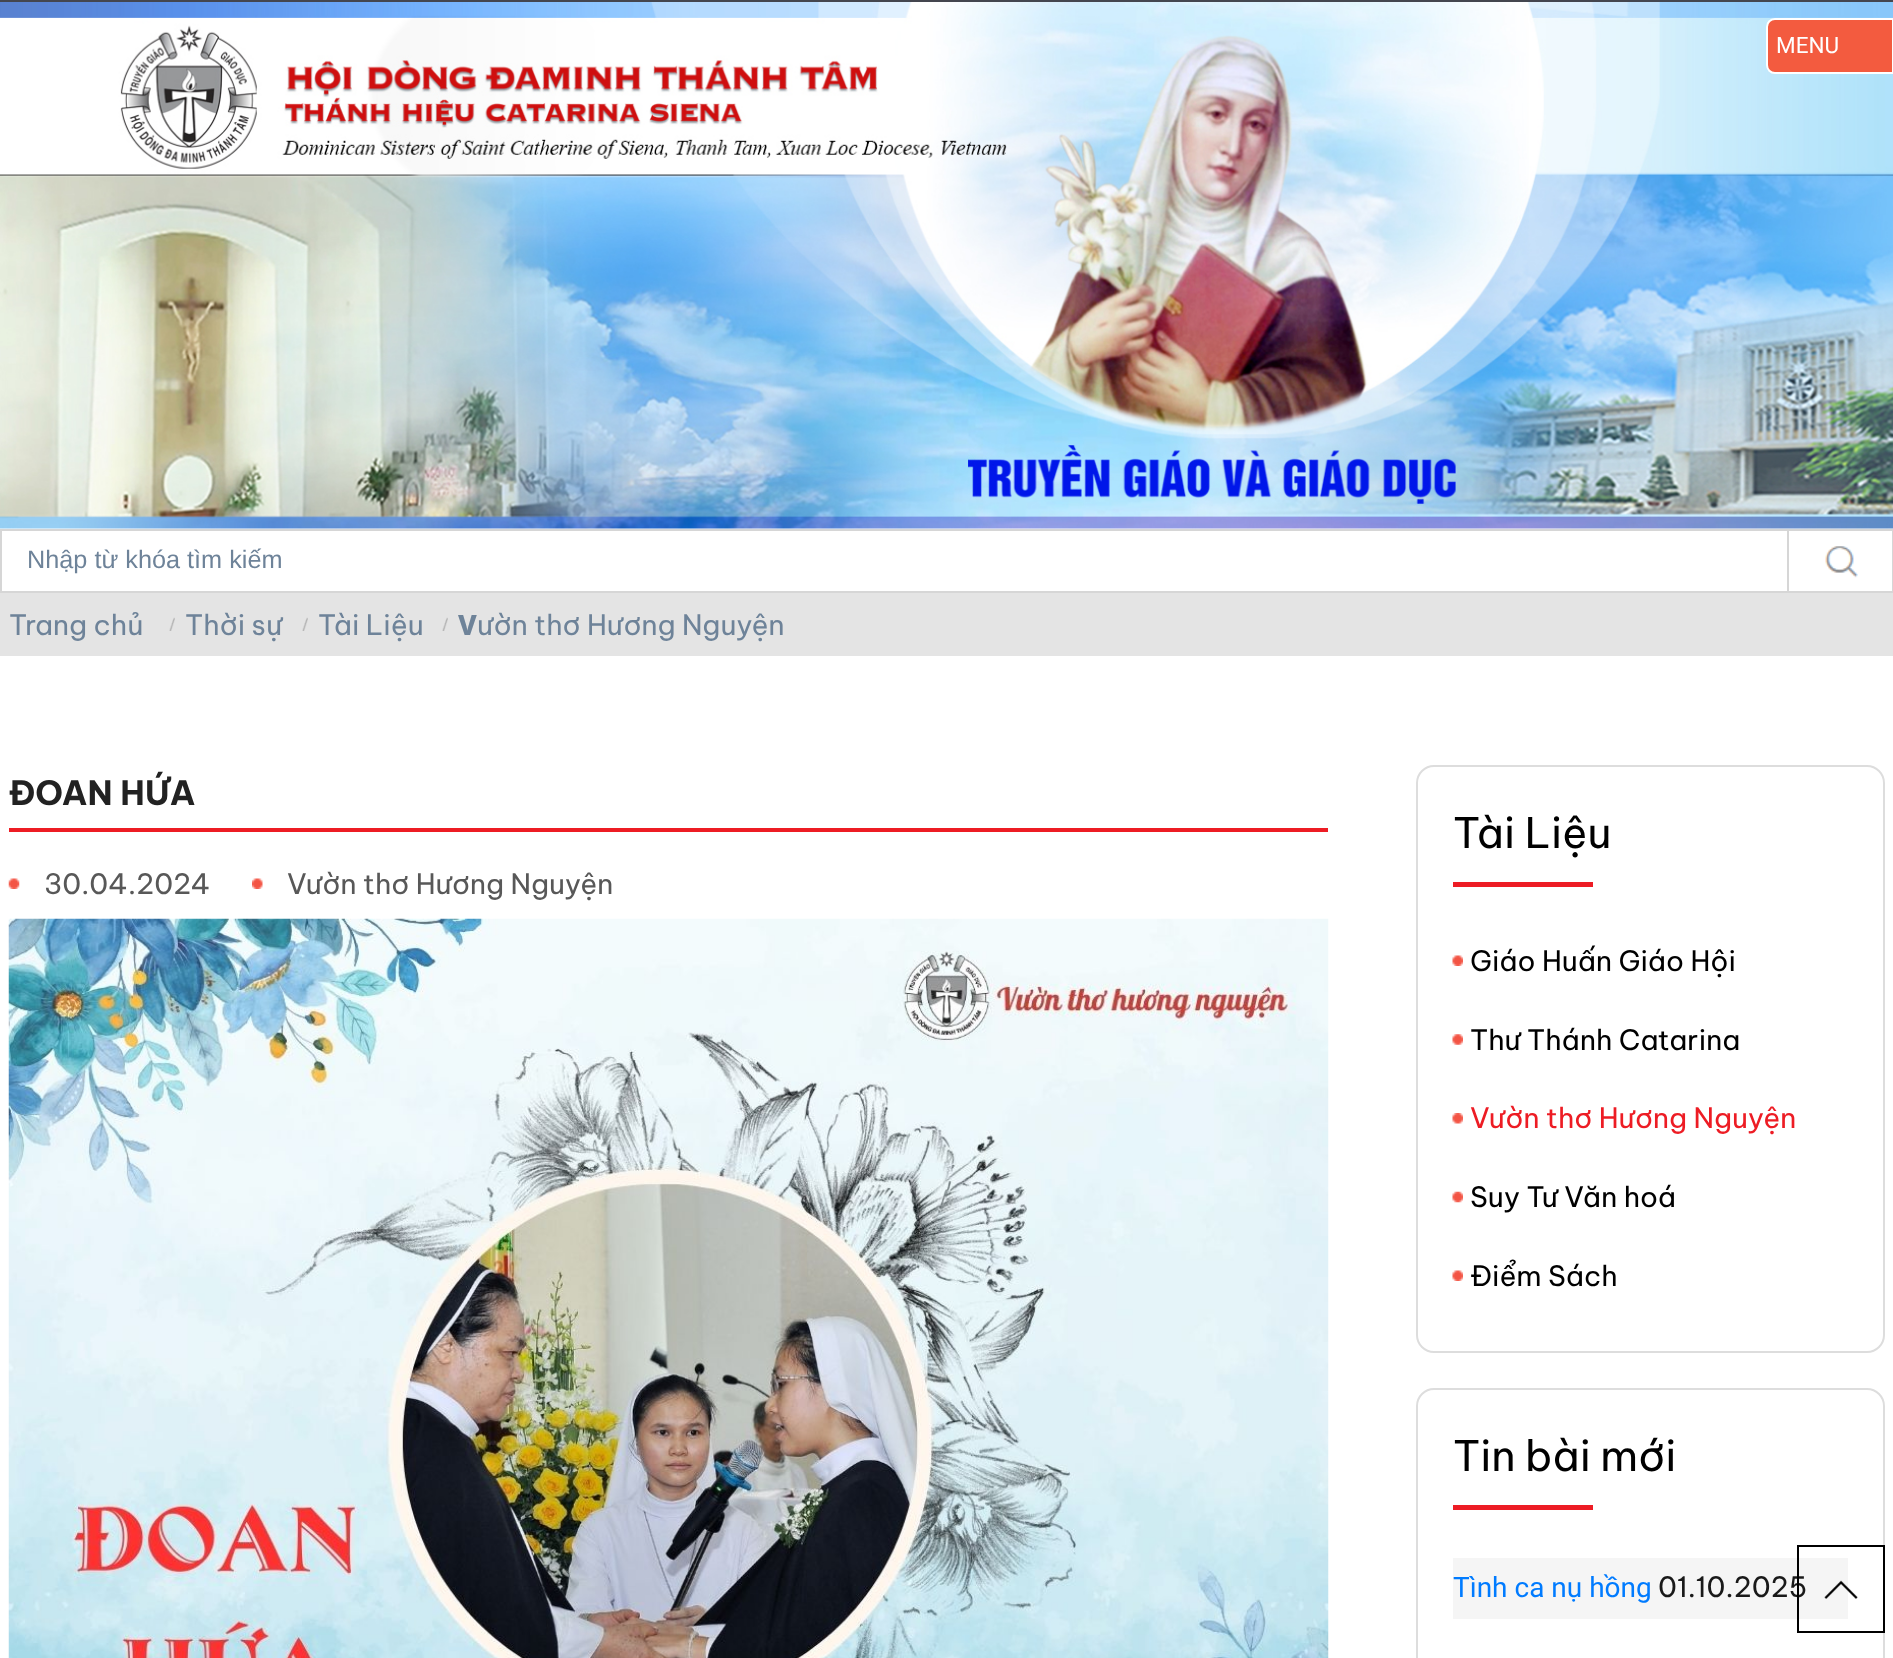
<svg xmlns="http://www.w3.org/2000/svg" width="1893" height="1658">
	<rect width="100%" height="100%" fill="#FFFFFF" />
	<image x="0" y="2" width="1893" height="527" href="assets/img1.png" />
	<rect x="0" y="0" width="1893" height="2" fill="#44464F" />
	<path d="M1775 19H1893V73H1775C1770.5 73 1767 69.5 1767 65V27C1767 22.5 1770.5 19 1775 19Z" fill="#F35B3F" stroke="#FFFFFF" stroke-width="2" />
	<text x="1776" y="53" font-family="Roboto" font-size="22.5" fill="#FFFFFF">MENU</text>
	<rect x="1" y="530" width="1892" height="62" fill="none" stroke="#D6D6D6" stroke-width="2" />
	<text x="27" y="568" font-family="Liberation Sans" font-size="25.25" fill="#6E8399">Nhập từ khóa tìm kiếm</text>
	<image x="1825" y="546" width="33" height="32" href="assets/img2.png" />
	<rect x="1787" y="530" width="2" height="62" fill="#D6D6D6" />
	<rect x="0" y="593" width="1893" height="63" fill="#E4E4E4" />
	<text x="9" y="635" font-family="Be Vietnam Pro" font-size="28" fill="#6E8399">Trang chủ</text>
	<image x="169" y="617" width="6" height="14" href="assets/img3.png" />
	<text x="185" y="635" font-family="Be Vietnam Pro" font-size="28" fill="#6E8399">Thời sự</text>
	<image x="302" y="617" width="6" height="14" href="assets/img4.png" />
	<text x="318" y="635" font-family="Be Vietnam Pro" font-size="28" fill="#6E8399">Tài Liệu</text>
	<image x="442" y="617" width="6" height="14" href="assets/img3.png" />
	<text x="458" y="635" font-family="Noto Sans" font-size="28" font-weight="800" fill="#6E8399">V</text>
	<text x="477" y="635" font-family="Be Vietnam Pro" font-size="28" fill="#6E8399">ườn thơ Hương Nguyện</text>
	<rect x="9" y="828" width="1319" height="4" fill="#ED1C24" />
	<text x="9" y="805" font-family="Be Vietnam Pro" font-size="33.5" font-weight="700" fill="#222222">ĐOAN HỨA</text>
	<image x="8" y="878" width="12" height="11" href="assets/img5.png" />
	<text x="44" y="894" font-family="Be Vietnam Pro" font-size="28" fill="#585858">30.04.2024</text>
	<image x="252" y="878" width="11" height="11" href="assets/img6.png" />
	<text x="287" y="894" font-family="Be Vietnam Pro" font-size="28" fill="#585858">Vườn thơ Hương Nguyện</text>
	<image x="8" y="918" width="1321" height="740" href="assets/img7.png" />
	<rect x="1417" y="766" width="467" height="586" rx="17" fill="none" stroke="#DDDDDD" stroke-width="2" />
	<text x="1453" y="848" font-family="Be Vietnam Pro" font-size="42" fill="#000000">Tài Liệu</text>
	<rect x="1453" y="882" width="140" height="5" fill="#ED1C24" />
	<image x="1452" y="955" width="11" height="11" href="assets/img8.png" />
	<text x="1470" y="971" font-family="Be Vietnam Pro" font-size="28" fill="#000000">Giáo Huấn Giáo Hội</text>
	<image x="1452" y="1034" width="11" height="11" href="assets/img9.png" />
	<text x="1470" y="1050" font-family="Be Vietnam Pro" font-size="28" fill="#000000">Thư Thánh Catarina</text>
	<image x="1452" y="1113" width="11" height="11" href="assets/img10.png" />
	<text x="1470" y="1128" font-family="Be Vietnam Pro" font-size="28" fill="#ED1C24">Vườn thơ Hương Nguyện</text>
	<image x="1452" y="1191" width="11" height="12" href="assets/img11.png" />
	<text x="1470" y="1207" font-family="Be Vietnam Pro" font-size="28" fill="#000000">Suy Tư Văn hoá</text>
	<image x="1452" y="1270" width="11" height="11" href="assets/img8.png" />
	<text x="1470" y="1286" font-family="Be Vietnam Pro" font-size="28" fill="#000000">Điểm Sách</text>
	<rect x="1417" y="1389" width="467" height="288" rx="17" fill="none" stroke="#DDDDDD" stroke-width="2" />
	<text x="1453" y="1471" font-family="Be Vietnam Pro" font-size="42" fill="#000000">Tin bài mới</text>
	<rect x="1453" y="1505" width="140" height="5" fill="#ED1C24" />
	<rect x="1453" y="1558" width="395" height="61" fill="#F5F5F5" />
	<text x="1453" y="1597" font-family="Roboto" font-size="28" fill="#007BFF">Tình ca nụ hồng</text>
	<text x="1658" y="1597" font-family="Be Vietnam Pro" font-size="28" fill="#191919">01.10.2025</text>
	<image x="1824" y="1580" width="34" height="19" href="assets/img12.png" />
	<rect x="1798" y="1546" width="86" height="86" fill="none" stroke="#000000" stroke-width="2" />
</svg>
